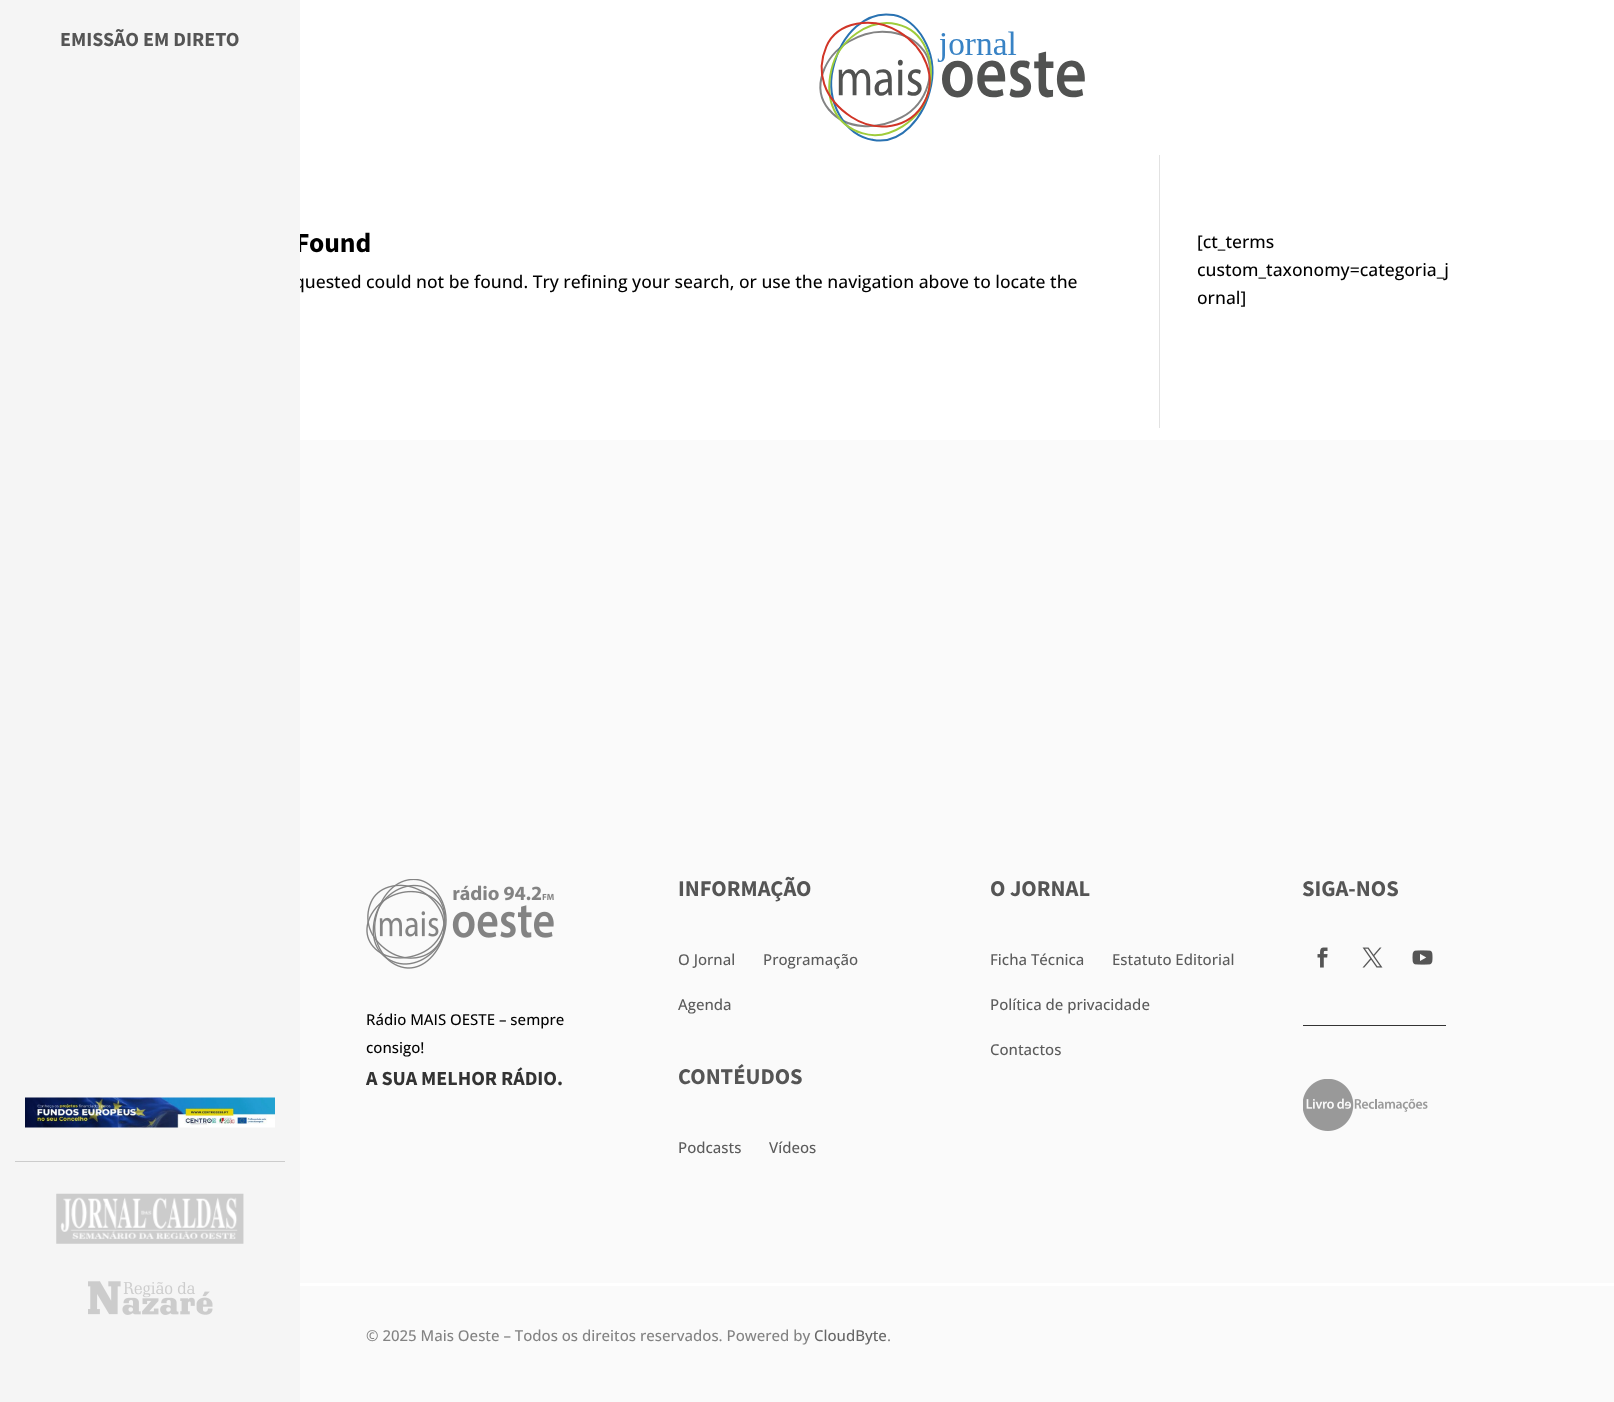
<svg xmlns="http://www.w3.org/2000/svg" width="1614" height="1402">
	<rect width="100%" height="100%" fill="#FFFFFF" />
	<text x="295" y="252" font-family="Source Sans Pro" font-size="27.5" font-weight="700" fill="#000000">Found</text>
	<text x="294" y="288" font-family="Open Sans" font-size="17.5" font-weight="500" fill="#000000">quested could not be found. Try refining your search, or use the navigation above to locate the</text>
	<rect x="0" y="0" width="300" height="1402" fill="#F5F5F5" />
	<text x="60" y="46" font-family="Source Sans Pro" font-size="20" font-weight="700" fill="#555555">EMISSÃO EM DIRETO</text>
	<image x="25" y="1097" width="250" height="31" href="assets/img1.png" />
	<rect x="15" y="1161" width="270" height="1" fill="#CCCCCC" />
	<image x="56" y="1193" width="188" height="51" href="assets/img2.png" />
	<image x="88" y="1281" width="125" height="34" href="assets/img3.png" />
	<image x="819" y="13" width="266" height="129" href="assets/img4.png" />
	<rect x="1159" y="155" width="1" height="273" fill="#E2E2E2" />
	<g font-family="Open Sans" font-size="17.5" font-weight="500" fill="#000000">
		<text x="1197" y="248">[ct_terms</text>
		<text x="1197" y="276">custom_taxonomy=categoria_j</text>
		<text x="1197" y="304">ornal]</text>
	</g>
	<rect x="300" y="440" width="1314" height="843" fill="#FAFAFA" />
	<text x="678" y="896" font-family="Source Sans Pro" font-size="22.5" font-weight="700" fill="#555555">INFORMAÇÃO</text>
	<g font-family="Open Sans" font-size="15" font-weight="500" fill="#5B5B5B">
		<text x="678" y="965">O Jornal</text>
		<text x="763" y="965">Programação</text>
		<text x="678" y="1010">Agenda</text>
	</g>
	<text x="678" y="1084" font-family="Source Sans Pro" font-size="22.5" font-weight="700" fill="#555555">CONTÉUDOS</text>
	<g font-family="Open Sans" font-size="15" font-weight="500" fill="#5B5B5B">
		<text x="678" y="1153">Podcasts</text>
		<text x="769" y="1153">Vídeos</text>
	</g>
	<text x="990" y="896" font-family="Source Sans Pro" font-size="22.5" font-weight="700" fill="#555555">O JORNAL</text>
	<g font-family="Open Sans" font-size="15" font-weight="500" fill="#5B5B5B">
		<text x="990" y="965">Ficha Técnica</text>
		<text x="1112" y="965">Estatuto Editorial</text>
		<text x="990" y="1010">Política de privacidade</text>
		<text x="990" y="1055">Contactos</text>
	</g>
	<text x="1302" y="896" font-family="Source Sans Pro" font-size="22.5" font-weight="700" fill="#555555">SIGA-NOS</text>
	<image x="1317" y="947" width="11" height="21" href="assets/img5.png" />
	<image x="1362" y="947" width="21" height="21" href="assets/img6.png" />
	<image x="1412" y="950" width="21" height="15" href="assets/img7.png" />
	<rect x="1303" y="1025" width="143" height="1" fill="#333333" />
	<image x="1303" y="1079" width="125" height="52" href="assets/img8.png" />
	<image x="366" y="879" width="188" height="90" href="assets/img9.png" />
	<g font-family="Open Sans" font-size="15" font-weight="500" fill="#000000">
		<text x="366" y="1025">Rádio MAIS OESTE – sempre</text>
		<text x="366" y="1053">consigo!</text>
	</g>
	<text x="366" y="1085" font-family="Source Sans Pro" font-size="20" font-weight="700" fill="#333333">A SUA MELHOR RÁDIO.</text>
	<rect x="300" y="1286" width="1314" height="116" fill="#FAFAFA" />
	<text x="366" y="1341" font-family="Open Sans" font-size="15" font-weight="500" fill="#838383">© 2025 Mais Oeste – Todos os direitos reservados. Powered by</text>
	<text x="814" y="1341" font-family="Open Sans" font-size="15" font-weight="500" fill="#666666">CloudByte</text>
	<text x="887" y="1341" font-family="Open Sans" font-size="15" font-weight="500" fill="#838383">.</text>
</svg>
